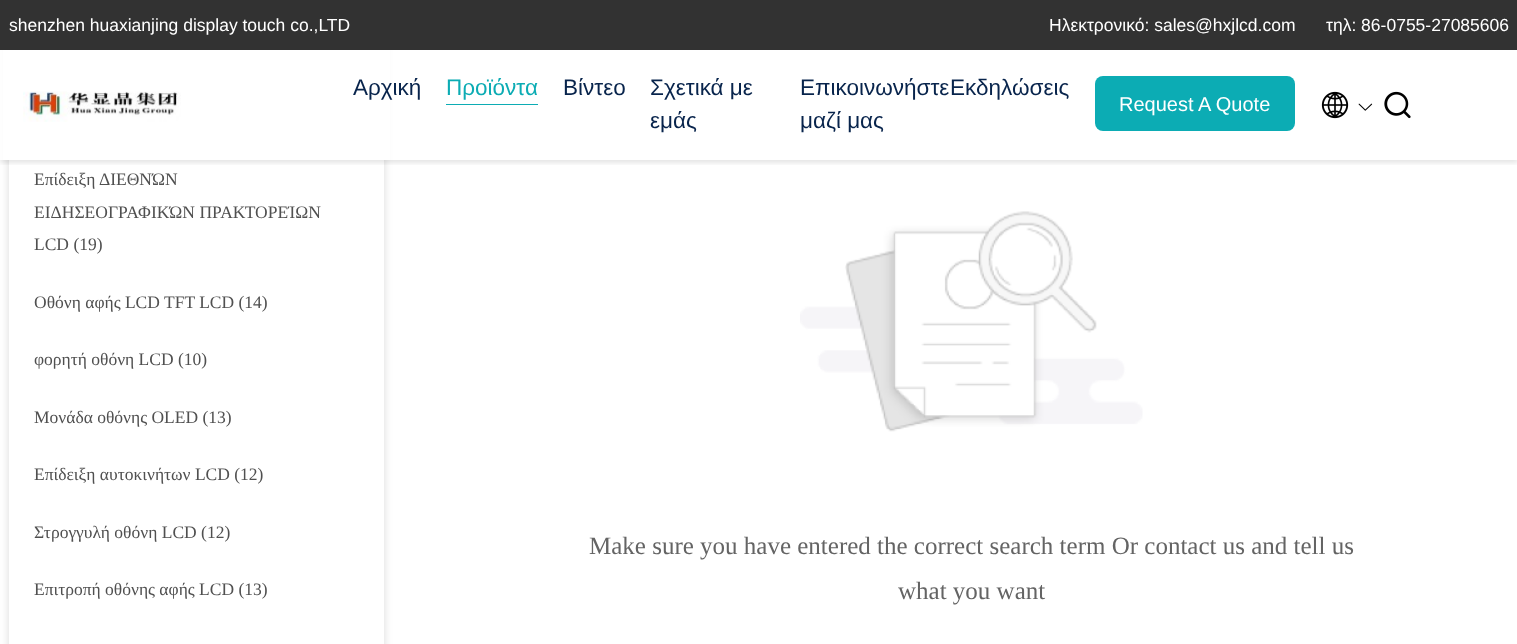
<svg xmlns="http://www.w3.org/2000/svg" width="1517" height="644">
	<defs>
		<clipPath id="clip1"><rect x="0" y="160" width="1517" height="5" /></clipPath>
	</defs>
	<rect width="100%" height="100%" fill="#FFFFFF" />
	<rect x="9" y="11" width="375" height="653" rx="8" fill="#000000" fill-opacity="0.15" filter="blur(4px)" />
	<rect x="3" y="50" width="387" height="110" fill="#FFFFFF" />
	<rect x="0" y="0" width="1517" height="50" fill="#323232" />
	<g font-family="Liberation Sans" font-size="17.5" fill="#FFFFFF">
		<text x="9" y="31">shenzhen huaxianjing display touch co.,LTD</text>
		<text x="1049" y="31">Ηλεκτρονικό: sales@hxjlcd.com</text>
		<text x="1326" y="31">τηλ: 86-0755-27085606</text>
	</g>
	<rect x="9" y="160" width="375" height="484" fill="#FFFFFF" />
	<g clip-path="url(#clip1)">
		<rect x="0" y="53" width="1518" height="110" fill="#000000" fill-opacity="0.1" filter="blur(2.5px)" />
	</g>
	<image x="23" y="91" width="158" height="31" href="assets/img1.png" />
	<text x="353" y="95" font-family="Liberation Sans" font-size="22.5" fill="#08244C">Αρχική</text>
	<rect x="446" y="104" width="92" height="1" fill="#0CACB4" />
	<text x="446" y="95" font-family="Liberation Sans" font-size="22.5" fill="#0CACB4">Προϊόντα</text>
	<g font-family="Liberation Sans" font-size="22.5" fill="#08244C">
		<text x="563" y="95">Βίντεο</text>
		<text x="650" y="95">Σχετικά με</text>
		<text x="650" y="128">εμάς</text>
		<text x="800" y="95">Επικοινωνήστε</text>
		<text x="800" y="128">μαζί μας</text>
		<text x="950" y="95">Εκδηλώσεις</text>
	</g>
	<rect x="1095" y="76" width="200" height="55" rx="8" fill="#0CACB4" />
	<g font-family="Liberation Sans" font-size="20" fill="#FFFFFF">
		<text x="1119" y="111">Request</text>
		<text x="1198" y="111">A Quote</text>
	</g>
	<image x="1321" y="91" width="28" height="28" href="assets/img2.png" />
	<image x="1358" y="103" width="15" height="8" href="assets/img3.png" />
	<image x="1384" y="91" width="27" height="28" href="assets/img4.png" />
	<g font-family="Liberation Serif" font-size="17.5" fill="#505050">
		<text x="34" y="185">Επίδειξη ΔΙΕΘΝΏΝ</text>
		<text x="34" y="218">ΕΙΔΗΣΕΟΓΡΑΦΙΚΏΝ ΠΡΑΚΤΟΡΕΊΩΝ</text>
		<text x="34" y="250">LCD (19)</text>
		<text x="34" y="308">Οθόνη αφής LCD TFT LCD (14)</text>
		<text x="34" y="365">φορητή οθόνη LCD (10)</text>
		<text x="34" y="423">Μονάδα οθόνης OLED (13)</text>
		<text x="34" y="480">Επίδειξη αυτοκινήτων LCD (12)</text>
		<text x="34" y="538">Στρογγυλή οθόνη LCD (12)</text>
		<text x="34" y="595">Επιτροπή οθόνης αφής LCD (13)</text>
	</g>
	<image x="800" y="211" width="343" height="221" href="assets/img5.png" />
	<g font-family="Liberation Serif" font-size="25" fill="#646464">
		<text x="589" y="554">Make sure you have entered the correct search term Or contact us and tell us</text>
		<text x="898" y="599">what you want</text>
	</g>
</svg>
